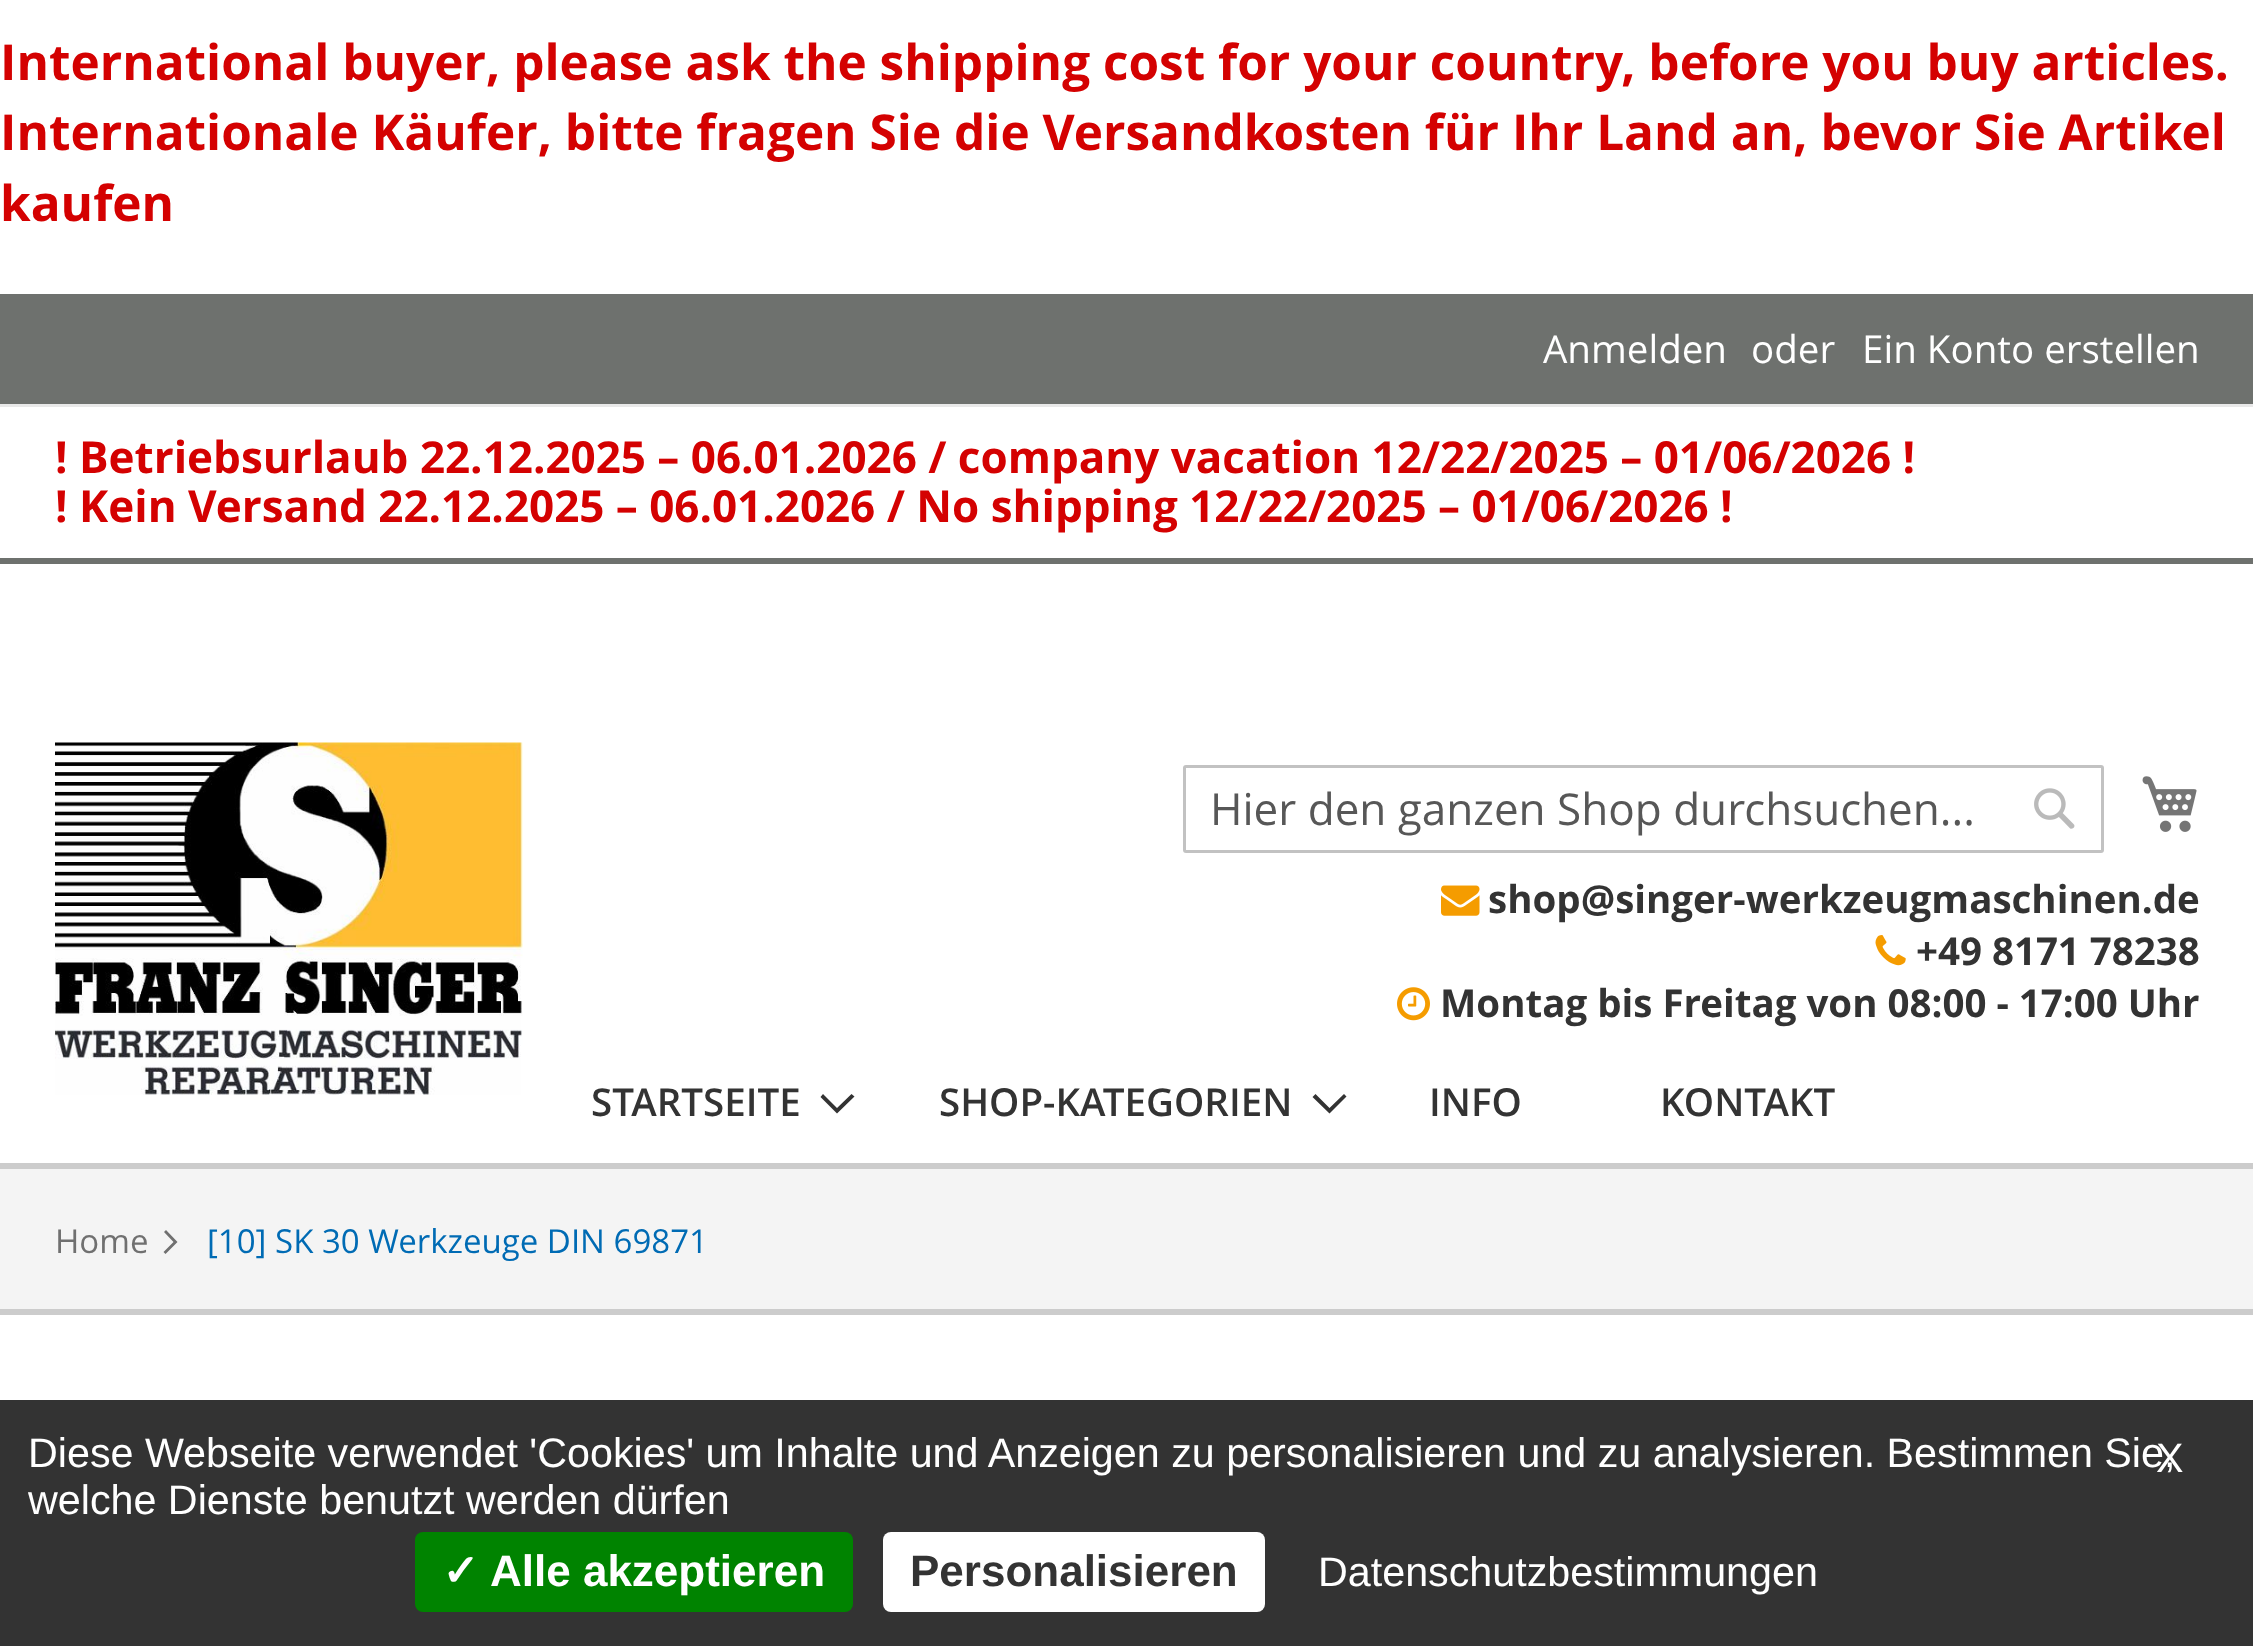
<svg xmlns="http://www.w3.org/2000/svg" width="2253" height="1646">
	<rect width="100%" height="100%" fill="#FFFFFF" />
	<g font-family="Open Sans" font-size="49.5" font-weight="700" fill="#D40101">
		<text x="0" y="80">International buyer, please ask the shipping cost for your country, before you buy articles.</text>
		<text x="0" y="150">Internationale Käufer, bitte fragen Sie die Versandkosten für Ihr Land an, bevor Sie Artikel</text>
		<text x="0" y="221">kaufen</text>
	</g>
	<rect x="0" y="294" width="2253" height="110" fill="#6E716E" />
	<rect x="0" y="404" width="2253" height="3" fill="#E8E8E8" />
	<g font-family="Open Sans" font-size="38.5" fill="#FFFFFF">
		<text x="1543" y="363">Anmelden</text>
		<text x="1751" y="363">oder</text>
		<text x="1862" y="363">Ein Konto erstellen</text>
	</g>
	<rect x="0" y="558" width="2253" height="6" fill="#6E716E" />
	<g font-family="Open Sans" font-size="44" font-weight="700" fill="#D40101">
		<text x="55" y="473">! Betriebsurlaub 22.12.2025 – 06.01.2026 / company vacation 12/22/2025 – 01/06/2026 !</text>
		<text x="55" y="522">! Kein Versand 22.12.2025 – 06.01.2026 / No shipping 12/22/2025 – 01/06/2026 !</text>
	</g>
	<image x="55" y="742" width="468" height="353" href="assets/img1.png" />
	<rect x="1184.5" y="766.5" width="918" height="85" rx="1.5" fill="none" stroke="#C2C2C2" stroke-width="3" />
	<text x="1210" y="825" font-family="Open Sans" font-size="44" fill="#575757">Hier den ganzen Shop durchsuchen...</text>
	<image x="2034" y="788" width="41" height="41" href="assets/img2.png" />
	<image x="2142" y="776" width="55" height="56" href="assets/img3.png" />
	<image x="1441" y="885" width="39" height="31" href="assets/img4.png" />
	<text x="1488" y="913" font-family="Open Sans" font-size="38.5" font-weight="700" fill="#333333">shop@singer-werkzeugmaschinen.de</text>
	<image x="1875" y="935" width="31" height="31" href="assets/img5.png" />
	<text x="1916" y="965" font-family="Open Sans" font-size="38.5" font-weight="700" fill="#333333">+49 8171 78238</text>
	<image x="1397" y="987" width="33" height="34" href="assets/img6.png" />
	<text x="1440" y="1017" font-family="Open Sans" font-size="38.5" font-weight="700" fill="#333333">Montag bis Freitag von 08:00 - 17:00 Uhr</text>
	<rect x="0" y="1163" width="2253" height="6" fill="#CCCCCC" />
	<text x="591" y="1116" font-family="Open Sans" font-size="38.5" font-weight="600" fill="#333333">STARTSEITE</text>
	<path d="M837 1108L823 1094L820.5 1097L837 1113.5L854.5 1096.5L851.5 1094Z" fill="#333333" />
	<text x="939" y="1116" font-family="Open Sans" font-size="38.5" font-weight="600" fill="#333333">SHOP-KATEGORIEN</text>
	<path d="M1329.5 1108L1315.5 1094L1312.5 1097L1329.5 1113.5L1346.5 1096.5L1344 1094Z" fill="#333333" />
	<g font-family="Open Sans" font-size="38.5" font-weight="600" fill="#333333">
		<text x="1429" y="1116">INFO</text>
		<text x="1660" y="1116">KONTAKT</text>
	</g>
	<rect x="0" y="1169" width="2253" height="140" fill="#F4F4F4" />
	<rect x="0" y="1309" width="2253" height="6" fill="#CCCCCC" />
	<text x="55" y="1253" font-family="Open Sans" font-size="33" fill="#707070">Home</text>
	<path d="M177.5 1242L166 1230L164 1232L173.5 1242L163.5 1252L165.5 1254Z" fill="#707070" />
	<text x="207" y="1253" font-family="Open Sans" font-size="33" fill="#006BB4">[10] SK 30 Werkzeuge DIN 69871</text>
	<rect x="0" y="1400" width="2253" height="246" fill="#333333" />
	<g font-family="Liberation Sans" font-size="41.25" fill="#FFFFFF">
		<text x="28" y="1467">Diese Webseite verwendet 'Cookies' um Inhalte und Anzeigen zu personalisieren und zu analysieren. Bestimmen Sie,</text>
		<text x="28" y="1514">welche Dienste benutzt werden dürfen</text>
		<text x="2156" y="1472">X</text>
	</g>
	<rect x="415" y="1532" width="438" height="80" rx="8" fill="#008300" />
	<text x="442" y="1586" font-family="DejaVu Sans" font-size="44" font-weight="700" fill="#FFFFFF">✓</text>
	<text x="490" y="1586" font-family="Liberation Sans" font-size="44" font-weight="700" fill="#FFFFFF">Alle akzeptieren</text>
	<rect x="883" y="1532" width="382" height="80" rx="8" fill="#FFFFFF" />
	<text x="910" y="1586" font-family="Liberation Sans" font-size="44" font-weight="700" fill="#333333">Personalisieren</text>
	<text x="1318" y="1586" font-family="Liberation Sans" font-size="41.25" fill="#FFFFFF">Datenschutzbestimmungen</text>
</svg>
